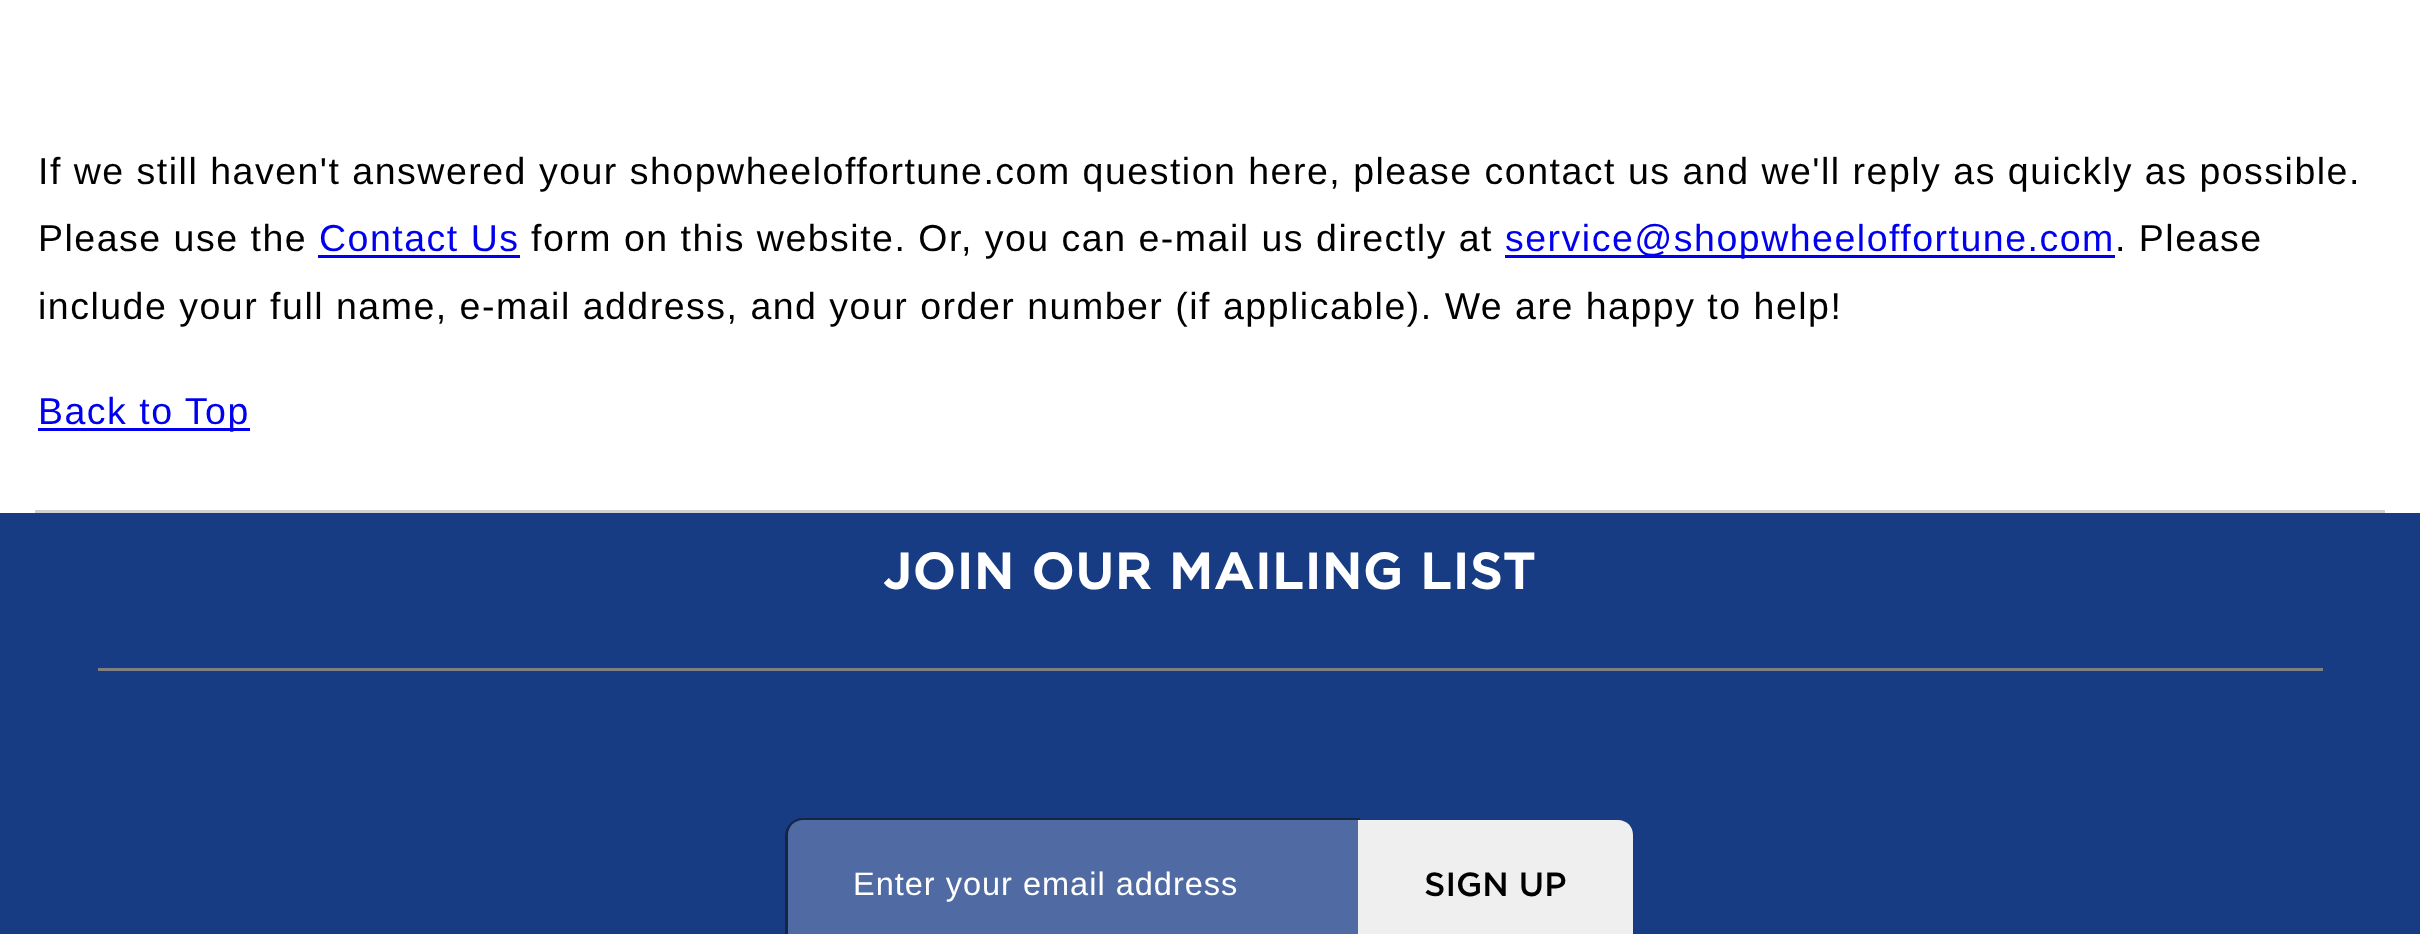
<svg xmlns="http://www.w3.org/2000/svg" width="2420" height="934">
	<rect width="100%" height="100%" fill="#FFFFFF" />
	<g font-family="Liberation Sans" font-size="37.5" letter-spacing="1.5" fill="#000000">
		<text x="38" y="184">If we still haven't answered your shopwheeloffortune.com question here, please contact us and we'll reply as quickly as possible.</text>
		<text x="38" y="251">Please use the</text>
	</g>
	<text x="319" y="251" font-family="Liberation Sans" font-size="37.5" letter-spacing="1.5" fill="#0000EE">Contact Us</text>
	<rect x="318" y="255" width="202" height="3" fill="#0000EE" />
	<text x="531" y="251" font-family="Liberation Sans" font-size="37.5" letter-spacing="1.5" fill="#000000">form on this website. Or, you can e-mail us directly at</text>
	<rect x="1505" y="255" width="610" height="3" fill="#0000EE" />
	<text x="1505" y="251" font-family="Liberation Sans" font-size="37.5" letter-spacing="1.5" fill="#0000EE">service@shopwheeloffortune.com</text>
	<g font-family="Liberation Sans" font-size="37.5" letter-spacing="1.5" fill="#000000">
		<text x="2115" y="251">. Please</text>
		<text x="38" y="319">include your full name, e-mail address, and your order number (if applicable). We are happy to help!</text>
	</g>
	<rect x="38" y="428" width="212" height="3" fill="#0000EE" />
	<text x="38" y="424" font-family="Liberation Sans" font-size="37.5" letter-spacing="1.5" fill="#0000EE">Back to Top</text>
	<rect x="35" y="510" width="2350" height="3" fill="#D0D0D0" />
	<rect x="0" y="513" width="2420" height="421" fill="#173C83" />
	<text x="883" y="589" font-family="Gotham" font-size="50" font-weight="700" letter-spacing="1.5" fill="#FFFFFF">JOIN OUR MAILING LIST</text>
	<rect x="98" y="668" width="2225" height="3" fill="#808080" />
	<path d="M803 819.5H1358.5V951.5H803C794 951.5 786.5 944 786.5 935V836C786.5 827 794 819.5 803 819.5Z" fill="none" stroke="#142545" stroke-width="3" />
	<path d="M803 820H1358V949H803C794.5 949 788 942.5 788 934V835C788 826.5 794.5 820 803 820Z" fill="#506BA4" />
	<text x="853" y="895" font-family="Liberation Sans" font-size="32.5" letter-spacing="1" fill="#FFFFFF">Enter your email address</text>
	<path d="M1358 820H1618C1626.5 820 1633 826.5 1633 835V934C1633 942.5 1626.5 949 1618 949H1358Z" fill="#EFEFEF" />
	<text x="1424" y="896" font-family="Gotham" font-size="33.5" font-weight="500" fill="#000000">SIGN UP</text>
</svg>
